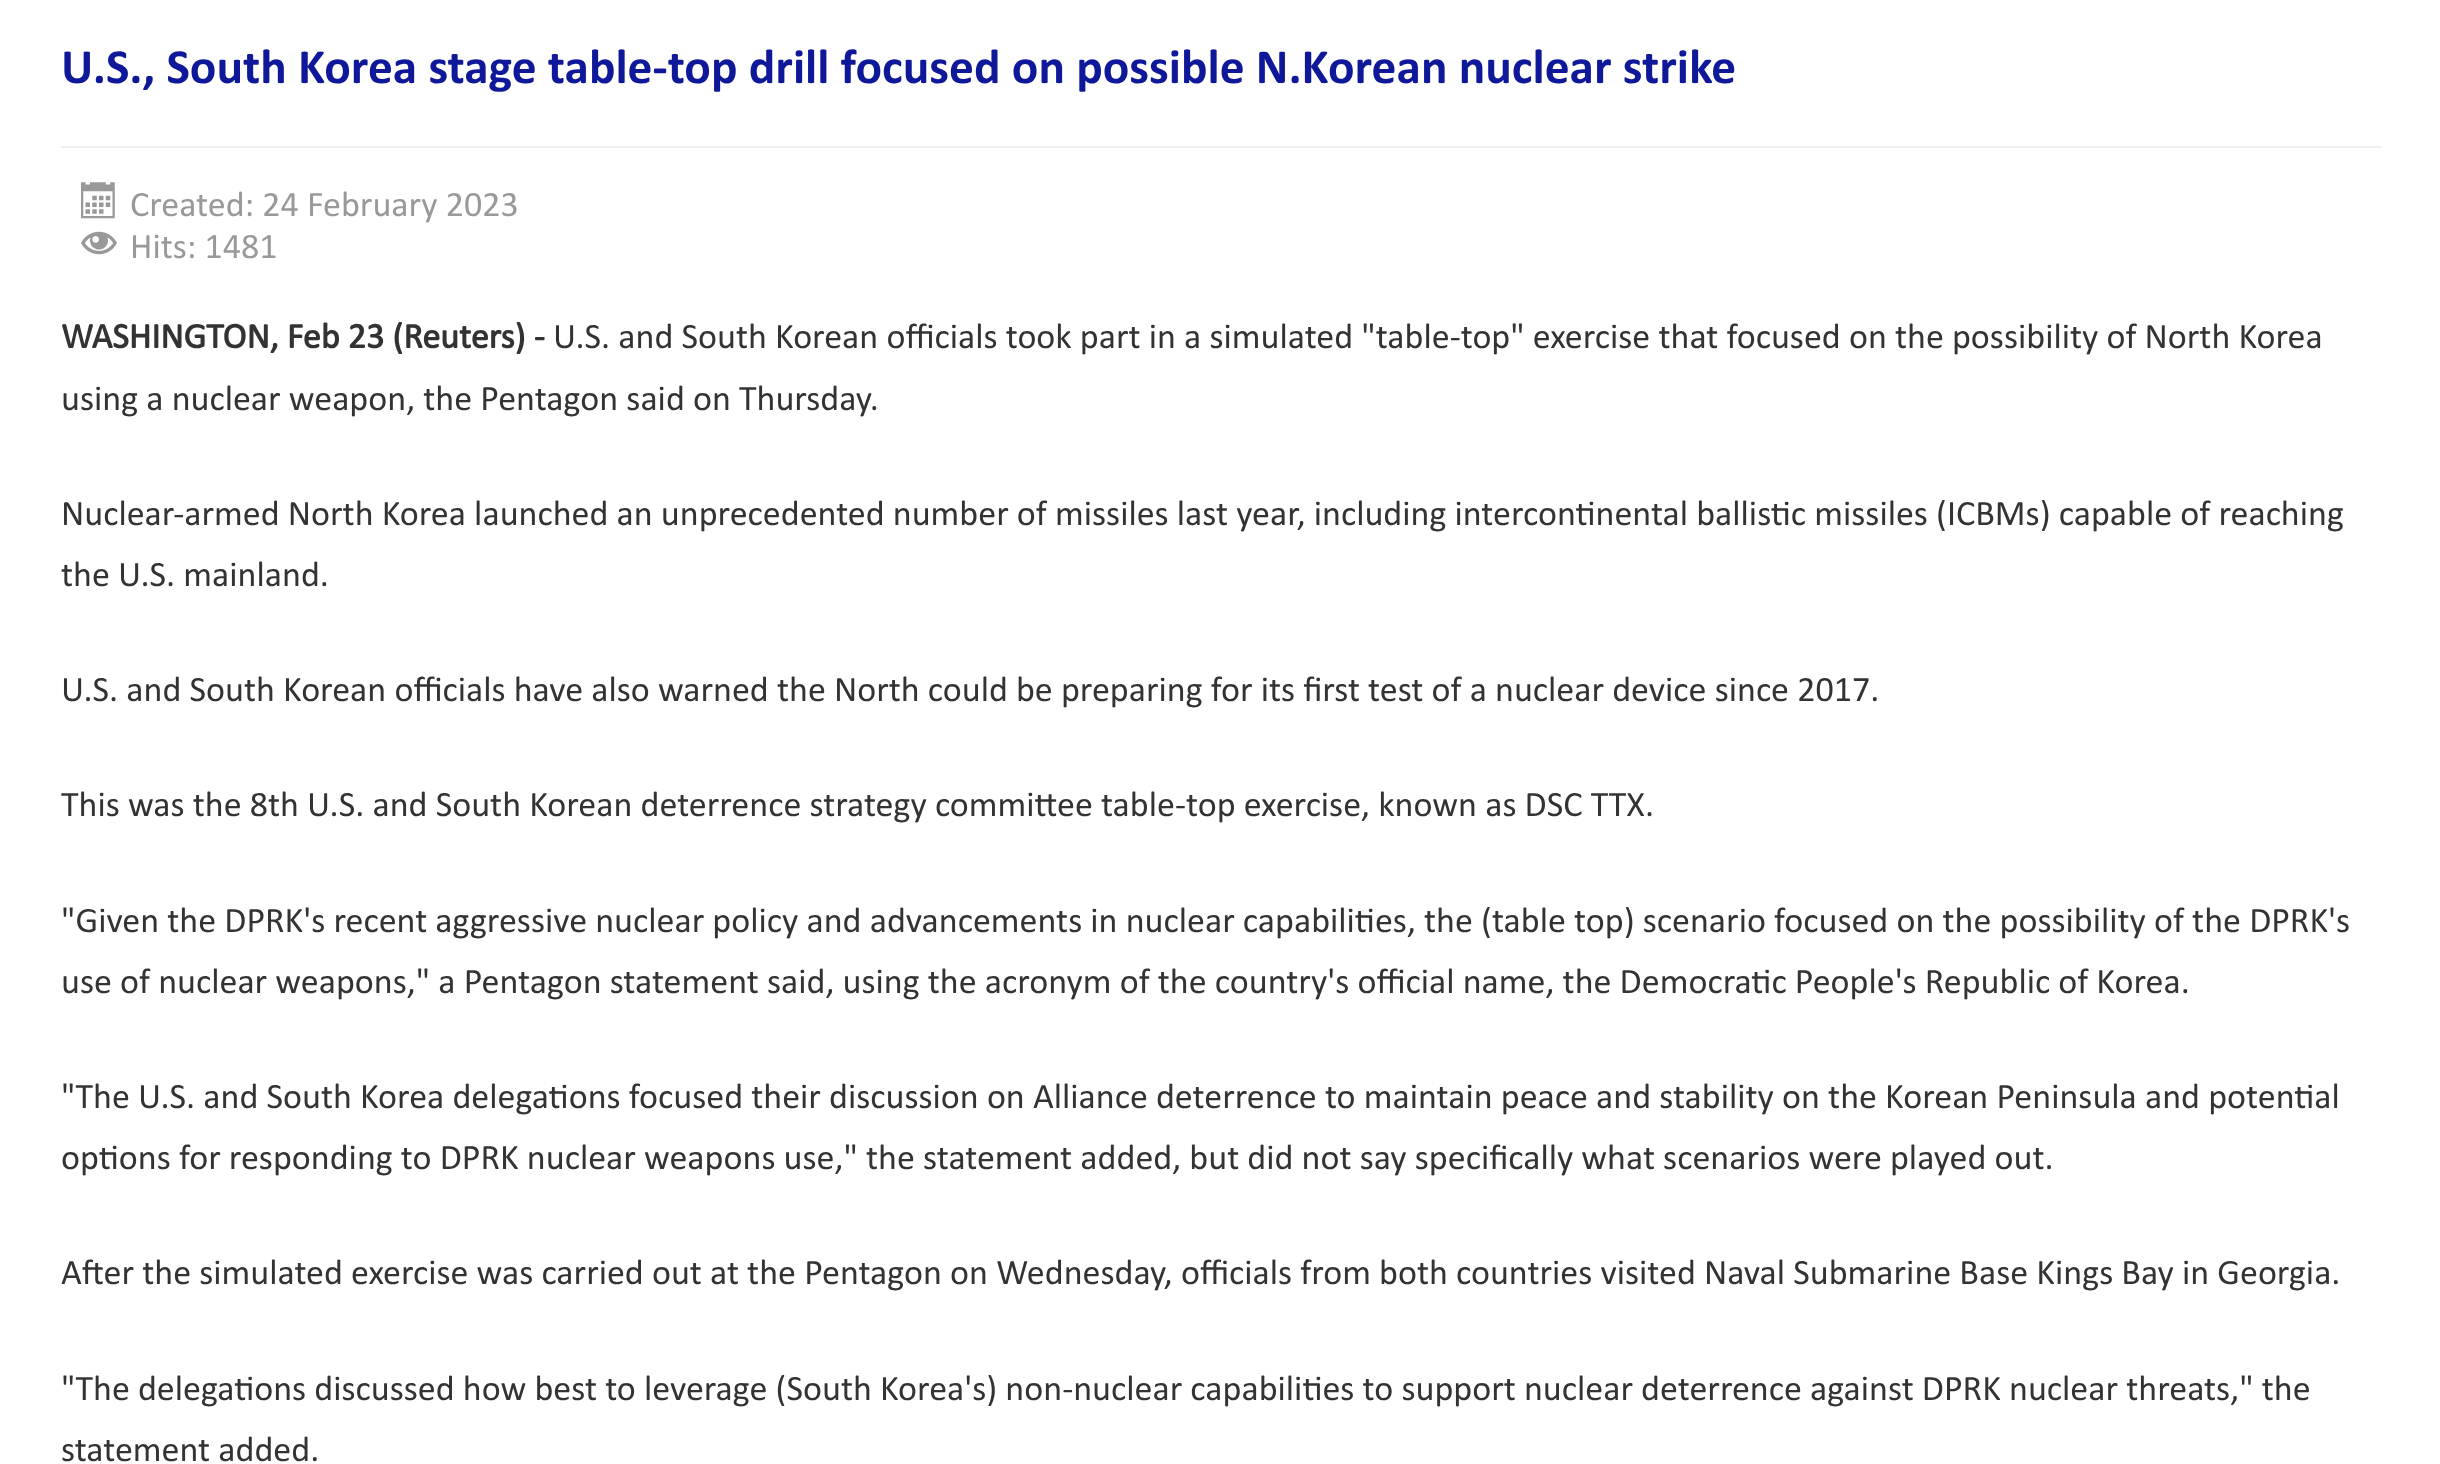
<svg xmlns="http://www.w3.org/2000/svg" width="2440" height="1464">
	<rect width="100%" height="100%" fill="#FFFFFF" />
	<rect x="61" y="146" width="2320" height="2" fill="#EEEEEE" />
	<text x="61" y="83" font-family="Calibri" font-size="49.5" font-weight="700" fill="#0F1899">U.S., South Korea stage table-top drill focused on possible N.Korean nuclear strike</text>
	<image x="81" y="182" width="34" height="37" href="assets/img1.png" />
	<text x="130" y="216" font-family="Calibri" font-size="36" fill="#999999">Created: 24 February 2023</text>
	<image x="81" y="231" width="36" height="24" href="assets/img2.png" />
	<text x="130" y="258" font-family="Calibri" font-size="36" fill="#999999">Hits: 1481</text>
	<text x="61" y="348" font-family="'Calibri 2'" font-size="36" font-weight="700" fill="#333333">WASHINGTON, Feb 23 (Reuters) -</text>
	<g font-family="Calibri" font-size="36" fill="#333333">
		<text x="553" y="348">U.S. and South Korean officials took part in a simulated "table-top" exercise that focused on the possibility of North Korea</text>
		<text x="61" y="410">using a nuclear weapon, the Pentagon said on Thursday.</text>
		<text x="61" y="525">Nuclear-armed North Korea launched an unprecedented number of missiles last year, including intercontinental ballistic missiles (ICBMs) capable of reaching</text>
		<text x="61" y="586">the U.S. mainland.</text>
		<text x="61" y="701">U.S. and South Korean officials have also warned the North could be preparing for its first test of a nuclear device since 2017.</text>
		<text x="61" y="816">This was the 8th U.S. and South Korean deterrence strategy committee table-top exercise, known as DSC TTX.</text>
		<text x="61" y="932">"Given the DPRK's recent aggressive nuclear policy and advancements in nuclear capabilities, the (table top) scenario focused on the possibility of the DPRK's</text>
		<text x="61" y="993">use of nuclear weapons," a Pentagon statement said, using the acronym of the country's official name, the Democratic People's Republic of Korea.</text>
		<text x="61" y="1108">"The U.S. and South Korea delegations focused their discussion on Alliance deterrence to maintain peace and stability on the Korean Peninsula and potential</text>
		<text x="61" y="1169">options for responding to DPRK nuclear weapons use," the statement added, but did not say specifically what scenarios were played out.</text>
		<text x="61" y="1284">After the simulated exercise was carried out at the Pentagon on Wednesday, officials from both countries visited Naval Submarine Base Kings Bay in Georgia.</text>
		<text x="61" y="1400">"The delegations discussed how best to leverage (South Korea's) non-nuclear capabilities to support nuclear deterrence against DPRK nuclear threats," the</text>
		<text x="61" y="1461">statement added.</text>
	</g>
</svg>
